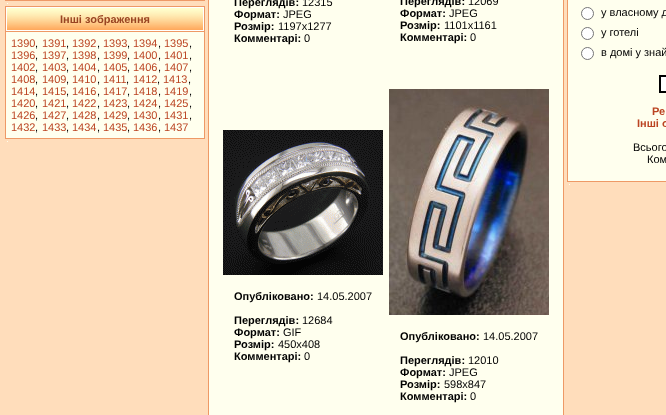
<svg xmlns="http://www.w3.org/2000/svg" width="666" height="415">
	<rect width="100%" height="100%" fill="#FFDDBB" />
	<rect x="5" y="0" width="200" height="1" fill="#EE9966" />
	<rect x="7" y="3" width="1" height="1" fill="#FFFFEE" />
	<rect x="5" y="6" width="200" height="133" fill="#EE9966" />
	<image x="7" y="8" width="196" height="22" href="assets/img1.png" />
	<rect x="6.5" y="7.5" width="197" height="23" fill="none" stroke="#FFFFFF" />
	<text x="60" y="23" font-family="Liberation Sans" font-size="11" font-weight="700" fill="#994422">Інші зображення</text>
	<rect x="6" y="32" width="198" height="106" fill="#FFFFEE" />
	<text x="11" y="47" font-family="Liberation Sans" font-size="11" fill="#BB4422">1390</text>
	<text x="35" y="47" font-family="Liberation Sans" font-size="11" fill="#000000">,</text>
	<text x="42" y="47" font-family="Liberation Sans" font-size="11" fill="#BB4422">1391</text>
	<text x="66" y="47" font-family="Liberation Sans" font-size="11" fill="#000000">,</text>
	<text x="72" y="47" font-family="Liberation Sans" font-size="11" fill="#BB4422">1392</text>
	<text x="97" y="47" font-family="Liberation Sans" font-size="11" fill="#000000">,</text>
	<text x="103" y="47" font-family="Liberation Sans" font-size="11" fill="#BB4422">1393</text>
	<text x="127" y="47" font-family="Liberation Sans" font-size="11" fill="#000000">,</text>
	<text x="133" y="47" font-family="Liberation Sans" font-size="11" fill="#BB4422">1394</text>
	<text x="158" y="47" font-family="Liberation Sans" font-size="11" fill="#000000">,</text>
	<text x="164" y="47" font-family="Liberation Sans" font-size="11" fill="#BB4422">1395</text>
	<text x="189" y="47" font-family="Liberation Sans" font-size="11" fill="#000000">,</text>
	<text x="11" y="59" font-family="Liberation Sans" font-size="11" fill="#BB4422">1396</text>
	<text x="35" y="59" font-family="Liberation Sans" font-size="11" fill="#000000">,</text>
	<text x="42" y="59" font-family="Liberation Sans" font-size="11" fill="#BB4422">1397</text>
	<text x="66" y="59" font-family="Liberation Sans" font-size="11" fill="#000000">,</text>
	<text x="72" y="59" font-family="Liberation Sans" font-size="11" fill="#BB4422">1398</text>
	<text x="97" y="59" font-family="Liberation Sans" font-size="11" fill="#000000">,</text>
	<text x="103" y="59" font-family="Liberation Sans" font-size="11" fill="#BB4422">1399</text>
	<text x="127" y="59" font-family="Liberation Sans" font-size="11" fill="#000000">,</text>
	<text x="133" y="59" font-family="Liberation Sans" font-size="11" fill="#BB4422">1400</text>
	<text x="158" y="59" font-family="Liberation Sans" font-size="11" fill="#000000">,</text>
	<text x="164" y="59" font-family="Liberation Sans" font-size="11" fill="#BB4422">1401</text>
	<text x="189" y="59" font-family="Liberation Sans" font-size="11" fill="#000000">,</text>
	<text x="11" y="71" font-family="Liberation Sans" font-size="11" fill="#BB4422">1402</text>
	<text x="35" y="71" font-family="Liberation Sans" font-size="11" fill="#000000">,</text>
	<text x="42" y="71" font-family="Liberation Sans" font-size="11" fill="#BB4422">1403</text>
	<text x="66" y="71" font-family="Liberation Sans" font-size="11" fill="#000000">,</text>
	<text x="72" y="71" font-family="Liberation Sans" font-size="11" fill="#BB4422">1404</text>
	<text x="97" y="71" font-family="Liberation Sans" font-size="11" fill="#000000">,</text>
	<text x="103" y="71" font-family="Liberation Sans" font-size="11" fill="#BB4422">1405</text>
	<text x="127" y="71" font-family="Liberation Sans" font-size="11" fill="#000000">,</text>
	<text x="133" y="71" font-family="Liberation Sans" font-size="11" fill="#BB4422">1406</text>
	<text x="158" y="71" font-family="Liberation Sans" font-size="11" fill="#000000">,</text>
	<text x="164" y="71" font-family="Liberation Sans" font-size="11" fill="#BB4422">1407</text>
	<text x="189" y="71" font-family="Liberation Sans" font-size="11" fill="#000000">,</text>
	<text x="11" y="83" font-family="Liberation Sans" font-size="11" fill="#BB4422">1408</text>
	<text x="35" y="83" font-family="Liberation Sans" font-size="11" fill="#000000">,</text>
	<text x="42" y="83" font-family="Liberation Sans" font-size="11" fill="#BB4422">1409</text>
	<text x="66" y="83" font-family="Liberation Sans" font-size="11" fill="#000000">,</text>
	<text x="72" y="83" font-family="Liberation Sans" font-size="11" fill="#BB4422">1410</text>
	<text x="97" y="83" font-family="Liberation Sans" font-size="11" fill="#000000">,</text>
	<text x="103" y="83" font-family="Liberation Sans" font-size="11" fill="#BB4422">1411</text>
	<text x="126" y="83" font-family="Liberation Sans" font-size="11" fill="#000000">,</text>
	<text x="133" y="83" font-family="Liberation Sans" font-size="11" fill="#BB4422">1412</text>
	<text x="157" y="83" font-family="Liberation Sans" font-size="11" fill="#000000">,</text>
	<text x="163" y="83" font-family="Liberation Sans" font-size="11" fill="#BB4422">1413</text>
	<text x="188" y="83" font-family="Liberation Sans" font-size="11" fill="#000000">,</text>
	<text x="11" y="95" font-family="Liberation Sans" font-size="11" fill="#BB4422">1414</text>
	<text x="35" y="95" font-family="Liberation Sans" font-size="11" fill="#000000">,</text>
	<text x="42" y="95" font-family="Liberation Sans" font-size="11" fill="#BB4422">1415</text>
	<text x="66" y="95" font-family="Liberation Sans" font-size="11" fill="#000000">,</text>
	<text x="72" y="95" font-family="Liberation Sans" font-size="11" fill="#BB4422">1416</text>
	<text x="97" y="95" font-family="Liberation Sans" font-size="11" fill="#000000">,</text>
	<text x="103" y="95" font-family="Liberation Sans" font-size="11" fill="#BB4422">1417</text>
	<text x="127" y="95" font-family="Liberation Sans" font-size="11" fill="#000000">,</text>
	<text x="133" y="95" font-family="Liberation Sans" font-size="11" fill="#BB4422">1418</text>
	<text x="158" y="95" font-family="Liberation Sans" font-size="11" fill="#000000">,</text>
	<text x="164" y="95" font-family="Liberation Sans" font-size="11" fill="#BB4422">1419</text>
	<text x="189" y="95" font-family="Liberation Sans" font-size="11" fill="#000000">,</text>
	<text x="11" y="107" font-family="Liberation Sans" font-size="11" fill="#BB4422">1420</text>
	<text x="35" y="107" font-family="Liberation Sans" font-size="11" fill="#000000">,</text>
	<text x="42" y="107" font-family="Liberation Sans" font-size="11" fill="#BB4422">1421</text>
	<text x="66" y="107" font-family="Liberation Sans" font-size="11" fill="#000000">,</text>
	<text x="72" y="107" font-family="Liberation Sans" font-size="11" fill="#BB4422">1422</text>
	<text x="97" y="107" font-family="Liberation Sans" font-size="11" fill="#000000">,</text>
	<text x="103" y="107" font-family="Liberation Sans" font-size="11" fill="#BB4422">1423</text>
	<text x="127" y="107" font-family="Liberation Sans" font-size="11" fill="#000000">,</text>
	<text x="133" y="107" font-family="Liberation Sans" font-size="11" fill="#BB4422">1424</text>
	<text x="158" y="107" font-family="Liberation Sans" font-size="11" fill="#000000">,</text>
	<text x="164" y="107" font-family="Liberation Sans" font-size="11" fill="#BB4422">1425</text>
	<text x="189" y="107" font-family="Liberation Sans" font-size="11" fill="#000000">,</text>
	<text x="11" y="119" font-family="Liberation Sans" font-size="11" fill="#BB4422">1426</text>
	<text x="35" y="119" font-family="Liberation Sans" font-size="11" fill="#000000">,</text>
	<text x="42" y="119" font-family="Liberation Sans" font-size="11" fill="#BB4422">1427</text>
	<text x="66" y="119" font-family="Liberation Sans" font-size="11" fill="#000000">,</text>
	<text x="72" y="119" font-family="Liberation Sans" font-size="11" fill="#BB4422">1428</text>
	<text x="97" y="119" font-family="Liberation Sans" font-size="11" fill="#000000">,</text>
	<text x="103" y="119" font-family="Liberation Sans" font-size="11" fill="#BB4422">1429</text>
	<text x="127" y="119" font-family="Liberation Sans" font-size="11" fill="#000000">,</text>
	<text x="133" y="119" font-family="Liberation Sans" font-size="11" fill="#BB4422">1430</text>
	<text x="158" y="119" font-family="Liberation Sans" font-size="11" fill="#000000">,</text>
	<text x="164" y="119" font-family="Liberation Sans" font-size="11" fill="#BB4422">1431</text>
	<text x="189" y="119" font-family="Liberation Sans" font-size="11" fill="#000000">,</text>
	<text x="11" y="131" font-family="Liberation Sans" font-size="11" fill="#BB4422">1432</text>
	<text x="35" y="131" font-family="Liberation Sans" font-size="11" fill="#000000">,</text>
	<text x="42" y="131" font-family="Liberation Sans" font-size="11" fill="#BB4422">1433</text>
	<text x="66" y="131" font-family="Liberation Sans" font-size="11" fill="#000000">,</text>
	<text x="72" y="131" font-family="Liberation Sans" font-size="11" fill="#BB4422">1434</text>
	<text x="97" y="131" font-family="Liberation Sans" font-size="11" fill="#000000">,</text>
	<text x="103" y="131" font-family="Liberation Sans" font-size="11" fill="#BB4422">1435</text>
	<text x="127" y="131" font-family="Liberation Sans" font-size="11" fill="#000000">,</text>
	<text x="133" y="131" font-family="Liberation Sans" font-size="11" fill="#BB4422">1436</text>
	<text x="158" y="131" font-family="Liberation Sans" font-size="11" fill="#000000">,</text>
	<text x="164" y="131" font-family="Liberation Sans" font-size="11" fill="#BB4422">1437</text>
	<rect x="7" y="141" width="1" height="1" fill="#FFFFEE" />
	<rect x="208.5" y="-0.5" width="355" height="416" fill="none" stroke="#EE9966" />
	<rect x="209" y="0" width="354" height="415" fill="#FFFFEE" />
	<text x="234" y="6" font-family="Liberation Sans" font-size="11" font-weight="700" fill="#000000">Переглядів:</text>
	<text x="302" y="6" font-family="Liberation Sans" font-size="11" fill="#000000">12315</text>
	<text x="234" y="18" font-family="Liberation Sans" font-size="11" font-weight="700" fill="#000000">Формат:</text>
	<text x="283" y="18" font-family="Liberation Sans" font-size="11" fill="#000000">JPEG</text>
	<text x="234" y="30" font-family="Liberation Sans" font-size="11" font-weight="700" fill="#000000">Розмір:</text>
	<text x="278" y="30" font-family="Liberation Sans" font-size="11" fill="#000000">1197x1277</text>
	<text x="234" y="42" font-family="Liberation Sans" font-size="11" font-weight="700" fill="#000000">Комментарі:</text>
	<text x="304" y="42" font-family="Liberation Sans" font-size="11" fill="#000000">0</text>
	<text x="400" y="5" font-family="Liberation Sans" font-size="11" font-weight="700" fill="#000000">Переглядів:</text>
	<text x="468" y="5" font-family="Liberation Sans" font-size="11" fill="#000000">12069</text>
	<text x="400" y="17" font-family="Liberation Sans" font-size="11" font-weight="700" fill="#000000">Формат:</text>
	<text x="449" y="17" font-family="Liberation Sans" font-size="11" fill="#000000">JPEG</text>
	<text x="400" y="29" font-family="Liberation Sans" font-size="11" font-weight="700" fill="#000000">Розмір:</text>
	<text x="444" y="29" font-family="Liberation Sans" font-size="11" fill="#000000">1101x1161</text>
	<text x="400" y="41" font-family="Liberation Sans" font-size="11" font-weight="700" fill="#000000">Комментарі:</text>
	<text x="470" y="41" font-family="Liberation Sans" font-size="11" fill="#000000">0</text>
	<image x="223" y="130" width="160" height="145" href="assets/img2.png" />
	<text x="234" y="300" font-family="Liberation Sans" font-size="11" font-weight="700" fill="#000000">Опубліковано:</text>
	<text x="317" y="300" font-family="Liberation Sans" font-size="11" fill="#000000">14.05.2007</text>
	<text x="234" y="324" font-family="Liberation Sans" font-size="11" font-weight="700" fill="#000000">Переглядів:</text>
	<text x="302" y="324" font-family="Liberation Sans" font-size="11" fill="#000000">12684</text>
	<text x="234" y="336" font-family="Liberation Sans" font-size="11" font-weight="700" fill="#000000">Формат:</text>
	<text x="283" y="336" font-family="Liberation Sans" font-size="11" fill="#000000">GIF</text>
	<text x="234" y="348" font-family="Liberation Sans" font-size="11" font-weight="700" fill="#000000">Розмір:</text>
	<text x="278" y="348" font-family="Liberation Sans" font-size="11" fill="#000000">450x408</text>
	<text x="234" y="360" font-family="Liberation Sans" font-size="11" font-weight="700" fill="#000000">Комментарі:</text>
	<text x="304" y="360" font-family="Liberation Sans" font-size="11" fill="#000000">0</text>
	<image x="389" y="89" width="160" height="226" href="assets/img3.png" />
	<text x="400" y="340" font-family="Liberation Sans" font-size="11" font-weight="700" fill="#000000">Опубліковано:</text>
	<text x="483" y="340" font-family="Liberation Sans" font-size="11" fill="#000000">14.05.2007</text>
	<text x="400" y="364" font-family="Liberation Sans" font-size="11" font-weight="700" fill="#000000">Переглядів:</text>
	<text x="468" y="364" font-family="Liberation Sans" font-size="11" fill="#000000">12010</text>
	<text x="400" y="376" font-family="Liberation Sans" font-size="11" font-weight="700" fill="#000000">Формат:</text>
	<text x="449" y="376" font-family="Liberation Sans" font-size="11" fill="#000000">JPEG</text>
	<text x="400" y="388" font-family="Liberation Sans" font-size="11" font-weight="700" fill="#000000">Розмір:</text>
	<text x="444" y="388" font-family="Liberation Sans" font-size="11" fill="#000000">598x847</text>
	<text x="400" y="400" font-family="Liberation Sans" font-size="11" font-weight="700" fill="#000000">Комментарі:</text>
	<text x="470" y="400" font-family="Liberation Sans" font-size="11" fill="#000000">0</text>
	<rect x="567" y="0" width="99" height="182" fill="#EE9966" />
	<rect x="568" y="0" width="98" height="181" fill="#FFFFEE" />
	<circle cx="587.5" cy="13.5" r="6" fill="#FFFFFF" stroke="#767676" />
	<text x="601" y="16" font-family="Liberation Sans" font-size="11" fill="#000000">у власному д</text>
	<circle cx="587.5" cy="33.5" r="6" fill="#FFFFFF" stroke="#767676" />
	<text x="601" y="36" font-family="Liberation Sans" font-size="11" fill="#000000">у готелі</text>
	<circle cx="587.5" cy="53.5" r="6" fill="#FFFFFF" stroke="#767676" />
	<text x="601" y="56" font-family="Liberation Sans" font-size="11" fill="#000000">в домі у знай</text>
	<rect x="660" y="76" width="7" height="16" fill="#FFFFFF" stroke="#000000" stroke-width="2" />
	<g font-family="Liberation Sans" font-size="11" font-weight="700" fill="#BB4422">
		<text x="652" y="115">Ре</text>
		<text x="637" y="127">Інші о</text>
	</g>
	<g font-family="Liberation Sans" font-size="11" fill="#000000">
		<text x="633" y="151">Всього</text>
		<text x="647" y="163">Ком</text>
	</g>
	<rect x="569" y="184" width="1" height="1" fill="#FFFFEE" />
</svg>
